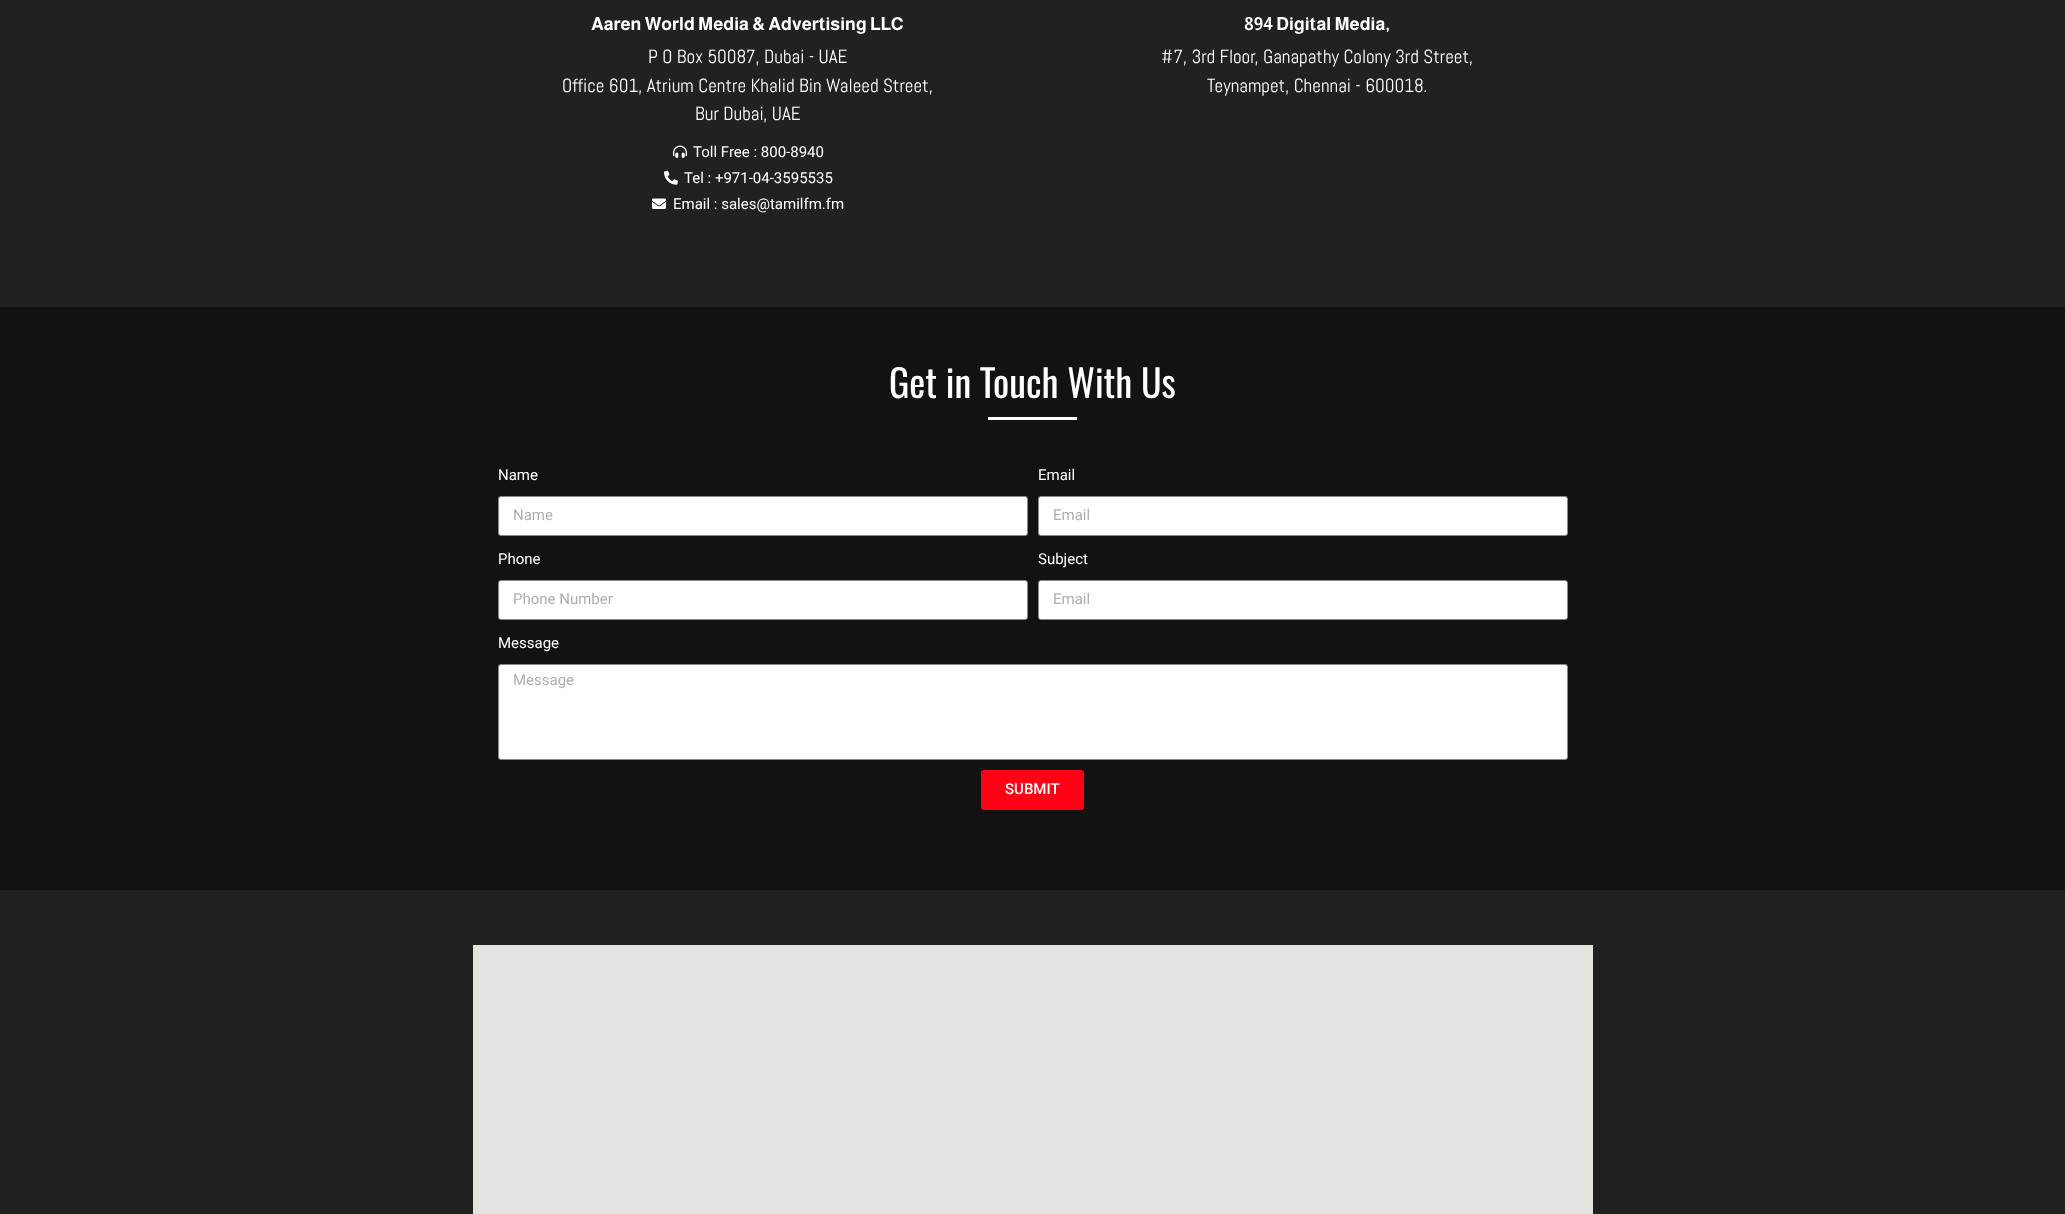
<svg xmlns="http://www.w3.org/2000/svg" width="2065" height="1214">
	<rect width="100%" height="100%" fill="#212121" />
	<text x="591" y="30" font-family="Almarai" font-size="18" font-weight="700" fill="#FFFFFF">Aaren World Media &amp; Advertising LLC</text>
	<g font-family="Abel" font-size="19" fill="#FFFFFF">
		<text x="648" y="63">P O Box 50087, Dubai - UAE</text>
		<text x="562" y="92">Office 601, Atrium Centre Khalid Bin Waleed Street,</text>
		<text x="695" y="120">Bur Dubai, UAE</text>
	</g>
	<image x="673" y="145" width="14" height="13" href="assets/img1.png" />
	<text x="693" y="157" font-family="Roboto" font-size="15" fill="#FFFFFF">Toll Free : 800-8940</text>
	<image x="664" y="170" width="14" height="15" href="assets/img2.png" />
	<text x="684" y="183" font-family="Roboto" font-size="15" fill="#FFFFFF">Tel : +971-04-3595535</text>
	<image x="652" y="198" width="14" height="11" href="assets/img3.png" />
	<text x="673" y="209" font-family="Roboto" font-size="15" fill="#FFFFFF">Email : sales@tamilfm.fm</text>
	<text x="1244" y="30" font-family="Almarai" font-size="18" font-weight="700" fill="#FFFFFF">894 Digital Media,</text>
	<g font-family="Abel" font-size="19" fill="#FFFFFF">
		<text x="1161" y="63">#7, 3rd Floor, Ganapathy Colony 3rd Street,</text>
		<text x="1207" y="92">Teynampet, Chennai - 600018.</text>
	</g>
	<rect x="0" y="307" width="2065" height="583" fill="#121212" />
	<text x="889" y="398" font-family="Oswald" font-size="38" fill="#FFFFFF">Get in Touch With Us</text>
	<rect x="988" y="417" width="89" height="3" fill="#FFFFFF" />
	<text x="498" y="480" font-family="Roboto" font-size="15" fill="#FFFFFF">Name</text>
	<rect x="498.5" y="496.5" width="529" height="39" rx="2.5" fill="#FFFFFF" stroke="#818A91" />
	<text x="513" y="520" font-family="Roboto" font-size="15" fill="#AFAFAF">Name</text>
	<text x="1038" y="480" font-family="Roboto" font-size="15" fill="#FFFFFF">Email</text>
	<rect x="1038.5" y="496.5" width="529" height="39" rx="2.5" fill="#FFFFFF" stroke="#818A91" />
	<text x="1053" y="520" font-family="Roboto" font-size="15" fill="#AFAFAF">Email</text>
	<text x="498" y="564" font-family="Roboto" font-size="15" fill="#FFFFFF">Phone</text>
	<rect x="498.5" y="580.5" width="529" height="39" rx="2.5" fill="#FFFFFF" stroke="#818A91" />
	<text x="513" y="604" font-family="Roboto" font-size="15" fill="#AFAFAF">Phone Number</text>
	<text x="1038" y="564" font-family="Roboto" font-size="15" fill="#FFFFFF">Subject</text>
	<rect x="1038.5" y="580.5" width="529" height="39" rx="2.5" fill="#FFFFFF" stroke="#818A91" />
	<text x="1053" y="604" font-family="Roboto" font-size="15" fill="#AFAFAF">Email</text>
	<text x="498" y="648" font-family="Roboto" font-size="15" fill="#FFFFFF">Message</text>
	<rect x="498.5" y="664.5" width="1069" height="95" rx="2.5" fill="#FFFFFF" stroke="#818A91" />
	<text x="513" y="685" font-family="Roboto" font-size="15" fill="#AFAFAF">Message</text>
	<rect x="981" y="770" width="103" height="40" rx="3" fill="#FF0015" />
	<text x="1005" y="794" font-family="Roboto" font-size="15" font-weight="500" fill="#FFFFFF">SUBMIT</text>
	<rect x="473" y="945" width="1120" height="269" fill="#E5E3DF" />
</svg>
